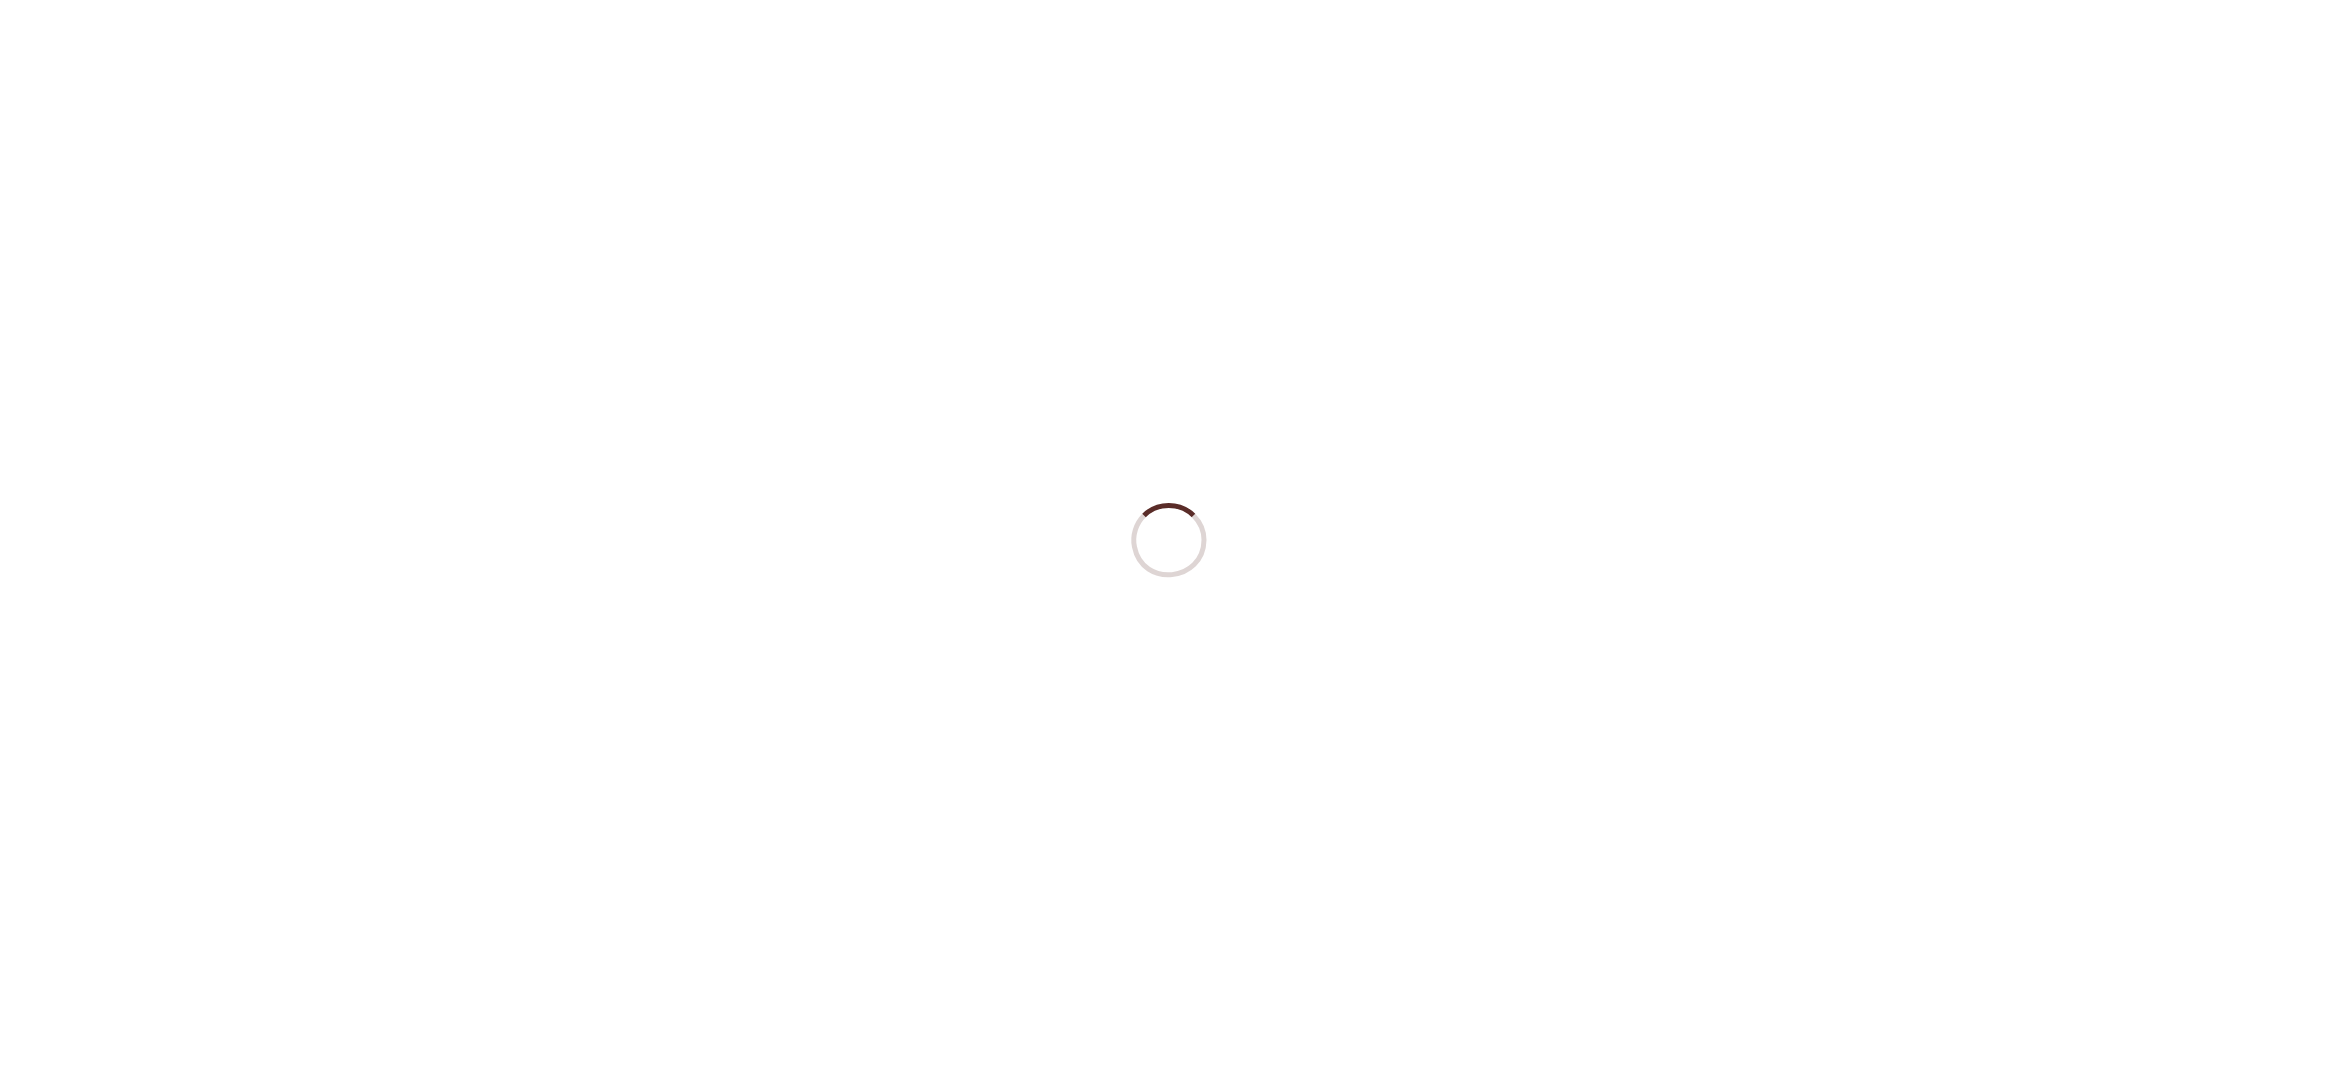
<svg xmlns="http://www.w3.org/2000/svg" width="2336" height="1079">
	<rect width="100%" height="100%" fill="#FFFFFF" />
	<path d="M1144 515.5C1157.5 502 1180 502 1193.5 515.5" fill="none" stroke="#5A2C28" stroke-width="5" />
	<path d="M1193.5 515.5C1200 522 1204 531 1204 540C1203.5 582 1142.5 588 1134.5 547C1132 535.5 1136 523.5 1144 515.5" fill="none" stroke="#5A2C28" stroke-opacity="0.2" stroke-width="5" />
</svg>
